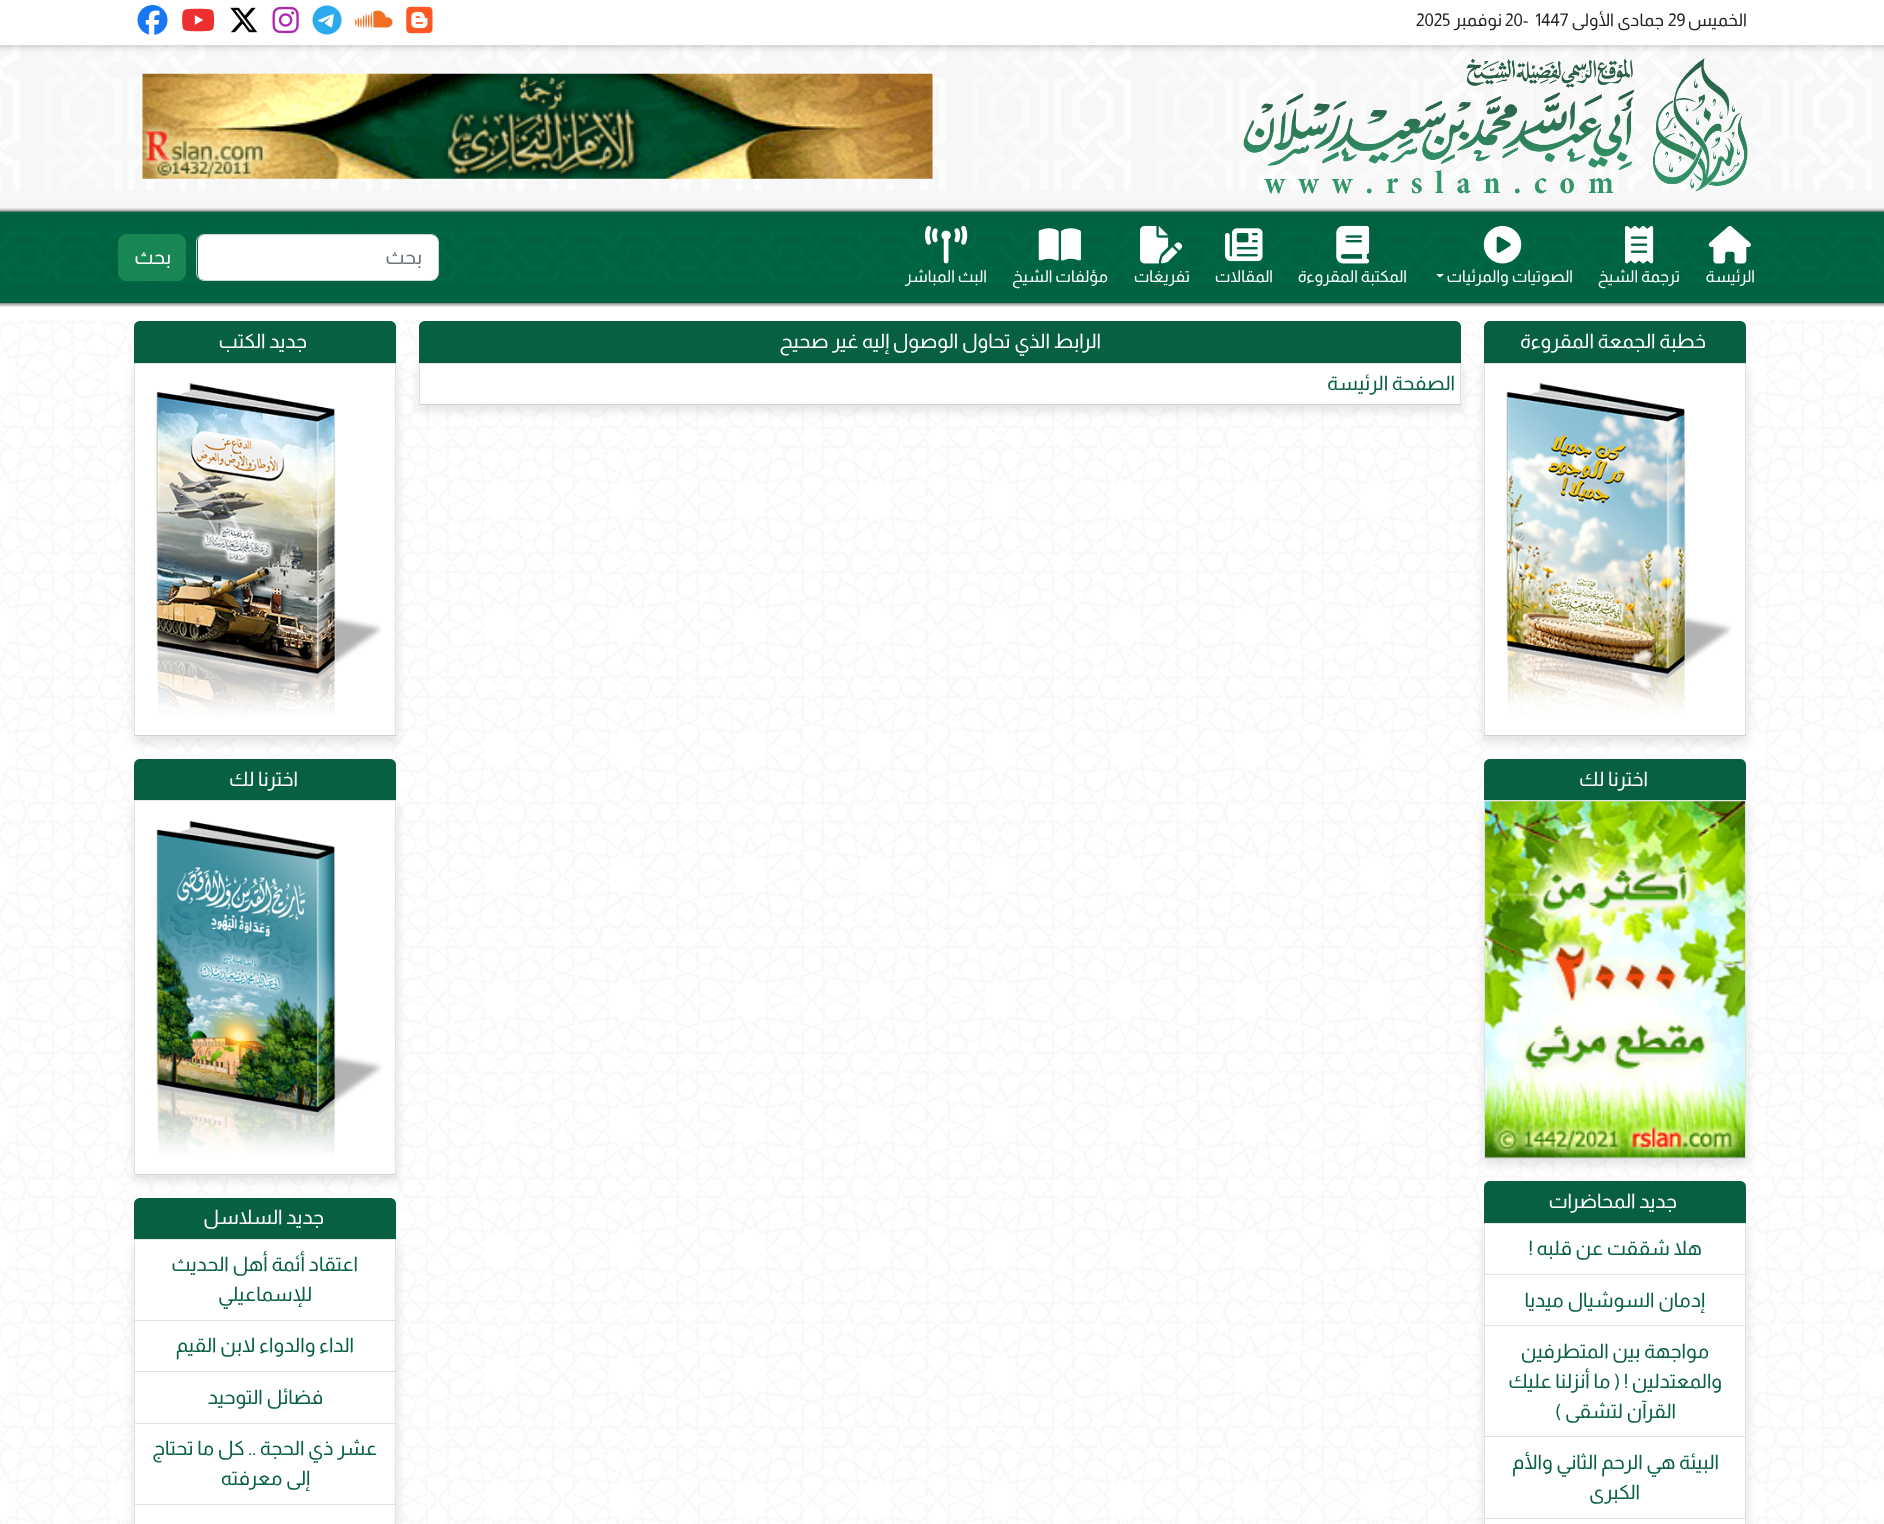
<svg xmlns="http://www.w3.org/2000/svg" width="1884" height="1524">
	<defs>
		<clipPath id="clip1"><path d="M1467 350H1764V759H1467ZM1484 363H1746V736H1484Z" clip-rule="evenodd" /></clipPath>
		<clipPath id="clip2"><path d="M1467 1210H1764V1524H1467ZM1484 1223H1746V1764H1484Z" clip-rule="evenodd" /></clipPath>
		<clipPath id="clip3"><path d="M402 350H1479V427H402ZM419 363H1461V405H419Z" clip-rule="evenodd" /></clipPath>
		<clipPath id="clip4"><path d="M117 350H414V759H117ZM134 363H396V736H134Z" clip-rule="evenodd" /></clipPath>
		<clipPath id="clip5"><path d="M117 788H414V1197H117ZM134 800H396V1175H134Z" clip-rule="evenodd" /></clipPath>
		<clipPath id="clip6"><path d="M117 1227H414V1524H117ZM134 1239H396V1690H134Z" clip-rule="evenodd" /></clipPath>
	</defs>
	<rect width="100%" height="100%" fill="#FFFFFF" />
	<image x="0" y="320" width="1884" height="1204" href="assets/img1.png" />
	<text x="1747" y="26" font-family="Almarai" font-size="17.5" direction="rtl" fill="#212529">الخميس</text>
	<text x="1668" y="26" font-family="Almarai" font-size="17.5" fill="#212529">29</text>
	<text x="1664" y="26" font-family="Almarai" font-size="17.5" direction="rtl" fill="#212529">جمادى الأولى</text>
	<g font-family="Almarai" font-size="17.5" fill="#212529">
		<text x="1535" y="26">1447</text>
		<text x="1505" y="26">20-</text>
	</g>
	<text x="1502" y="26" font-family="Almarai" font-size="17.5" direction="rtl" fill="#212529">نوفمبر</text>
	<text x="1416" y="26" font-family="Almarai" font-size="17.5" fill="#212529">2025</text>
	<image x="406" y="6" width="27" height="28" href="assets/img2.png" />
	<image x="355" y="10" width="38" height="18" href="assets/img3.png" />
	<image x="312" y="5" width="30" height="30" href="assets/img4.png" />
	<image x="272" y="6" width="27" height="28" href="assets/img5.png" />
	<image x="230" y="7" width="28" height="26" href="assets/img6.png" />
	<image x="182" y="8" width="33" height="24" href="assets/img7.png" />
	<image x="137" y="5" width="31" height="30" href="assets/img8.png" />
	<image x="0" y="45" width="1884" height="163" href="assets/img9.png" />
	<image x="1243" y="58" width="505" height="136" href="assets/img10.png" />
	<image x="142" y="73" width="791" height="106" href="assets/img11.png" />
	<image x="0" y="207" width="1884" height="100" href="assets/img12.png" />
	<rect x="198" y="235" width="240" height="45" rx="6" fill="#FFFFFF" />
	<rect x="196.5" y="234.5" width="242" height="46" rx="7.5" fill="none" stroke="#CED4DA" />
	<text x="422" y="264" font-family="Almarai" font-size="20" direction="rtl" fill="#6C757D">بحث</text>
	<rect x="118.5" y="234.5" width="67" height="46" rx="7.5" fill="#198754" stroke="#198754" />
	<text x="171" y="264" font-family="Almarai" font-size="20" direction="rtl" fill="#FFFFFF">بحث</text>
	<image x="1708" y="225" width="43" height="39" href="assets/img13.png" />
	<text x="1755" y="282" font-family="Almarai" font-size="16.25" direction="rtl" fill="#FFFFFF">الرئيسة</text>
	<image x="1625" y="225" width="29" height="39" href="assets/img14.png" />
	<text x="1680" y="282" font-family="Almarai" font-size="16.25" direction="rtl" fill="#FFFFFF">ترجمة الشيخ</text>
	<image x="1483" y="225" width="39" height="39" href="assets/img15.png" />
	<text x="1573" y="282" font-family="Almarai" font-size="16.25" direction="rtl" fill="#FFFFFF">الصوتيات والمرئيات</text>
	<path d="M1436 274H1444L1440 277.5Z" fill="#FFFFFF" />
	<image x="1336" y="225" width="34" height="39" href="assets/img16.png" />
	<text x="1407" y="282" font-family="Almarai" font-size="16.25" direction="rtl" fill="#FFFFFF">المكتبة المقروءة</text>
	<image x="1225" y="228" width="38" height="34" href="assets/img17.png" />
	<text x="1273" y="282" font-family="Almarai" font-size="16.25" direction="rtl" fill="#FFFFFF">المقالات</text>
	<image x="1140" y="225" width="43" height="39" href="assets/img18.png" />
	<text x="1190" y="282" font-family="Almarai" font-size="16.25" direction="rtl" fill="#FFFFFF">تفريغات</text>
	<image x="1038" y="228" width="43" height="33" href="assets/img19.png" />
	<text x="1108" y="282" font-family="Almarai" font-size="16.25" direction="rtl" fill="#FFFFFF">مؤلفات الشيخ</text>
	<image x="925" y="225" width="43" height="39" href="assets/img20.png" />
	<text x="987" y="282" font-family="Almarai" font-size="16.25" direction="rtl" fill="#FFFFFF">البث المباشر</text>
	<rect x="1483" y="320" width="265" height="418" rx="8" fill="#FFFFFF" />
	<path d="M1490 321H1740C1743.5 321 1746 323.5 1746 327V363H1484V327C1484 323.5 1486.5 321 1490 321Z" fill="#076043" />
	<text x="1706" y="348" font-family="Almarai" font-size="20" direction="rtl" fill="#FFFFFF">خطبة الجمعة المقروءة</text>
	<g clip-path="url(#clip1)">
		<rect x="1483" y="366" width="265" height="377" fill="#000000" fill-opacity="0.1" filter="blur(5px)" />
	</g>
	<rect x="1484" y="363" width="262" height="1" fill="#E5E6E9" />
	<rect x="1745" y="363" width="1" height="373" fill="#DFE0E4" />
	<rect x="1484" y="735" width="262" height="1" fill="#D0D1D5" />
	<rect x="1484" y="363" width="1" height="373" fill="#DFE0E4" />
	<image x="1506" y="382" width="226" height="333" href="assets/img21.png" />
	<rect x="1483" y="758" width="265" height="402" rx="8" fill="#FFFFFF" />
	<path d="M1490 759H1740C1743.5 759 1746 761.5 1746 765V800H1484V765C1484 761.5 1486.5 759 1490 759Z" fill="#076043" />
	<text x="1648" y="786" font-family="Almarai" font-size="20" direction="rtl" fill="#FFFFFF">اخترنا لك</text>
	<rect x="1483" y="804" width="265" height="361" fill="#000000" fill-opacity="0.1" filter="blur(5px)" />
	<rect x="1484" y="800" width="262" height="1" fill="#E5E6E9" />
	<rect x="1745" y="800" width="1" height="359" fill="#DFE0E4" />
	<rect x="1484" y="1158" width="262" height="1" fill="#D0D1D5" />
	<rect x="1484" y="800" width="1" height="359" fill="#DFE0E4" />
	<image x="1485" y="801" width="260" height="357" href="assets/img22.png" />
	<rect x="1483" y="1180" width="265" height="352" rx="8" fill="#FFFFFF" />
	<path d="M1490 1181H1740C1743.5 1181 1746 1183.5 1746 1187V1223H1484V1187C1484 1183.5 1486.5 1181 1490 1181Z" fill="#076043" />
	<text x="1677" y="1208" font-family="Almarai" font-size="20" direction="rtl" fill="#FFFFFF">جديد المحاضرات</text>
	<g clip-path="url(#clip2)">
		<rect x="1483" y="1226" width="265" height="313" fill="#000000" fill-opacity="0.1" filter="blur(5px)" />
	</g>
	<rect x="1484" y="1223" width="262" height="1" fill="#E5E6E9" />
	<rect x="1745" y="1223" width="1" height="301" fill="#DFE0E4" />
	<rect x="1484" y="1223" width="1" height="301" fill="#DFE0E4" />
	<rect x="1485" y="1274" width="261" height="1" fill="#DEE2E6" />
	<text x="1702" y="1255" font-family="Almarai" font-size="20" direction="rtl" fill="#076043">هلا شققت عن قلبه !</text>
	<rect x="1485" y="1325" width="261" height="1" fill="#DEE2E6" />
	<text x="1705" y="1307" font-family="Almarai" font-size="20" direction="rtl" fill="#076043">إدمان السوشيال ميديا</text>
	<rect x="1485" y="1436" width="261" height="1" fill="#DEE2E6" />
	<g font-family="Almarai" font-size="20" direction="rtl" fill="#076043">
		<text x="1709" y="1358">مواجهة بين المتطرفين</text>
		<text x="1722" y="1388">والمعتدلين ! ( ما أنزلنا عليك</text>
		<text x="1676" y="1418">القرآن لتشقى )</text>
	</g>
	<rect x="1485" y="1518" width="261" height="1" fill="#DEE2E6" />
	<g font-family="Almarai" font-size="20" direction="rtl" fill="#076043">
		<text x="1719" y="1469">البيئة هي الرحم الثاني والأم</text>
		<text x="1640" y="1499">الكبرى</text>
	</g>
	<rect x="418" y="320" width="1045" height="86" rx="8" fill="#FFFFFF" />
	<path d="M425 321H1455C1458.5 321 1461 323.5 1461 327V363H419V327C419 323.5 421.5 321 425 321Z" fill="#076043" />
	<text x="1101" y="348" font-family="Almarai" font-size="20" direction="rtl" fill="#FFFFFF">الرابط الذي تحاول الوصول إليه غير صحيح</text>
	<g clip-path="url(#clip3)">
		<rect x="418" y="366" width="1045" height="45" fill="#000000" fill-opacity="0.1" filter="blur(5px)" />
	</g>
	<rect x="419" y="363" width="1042" height="1" fill="#E5E6E9" />
	<rect x="1460" y="363" width="1" height="42" fill="#DFE0E4" />
	<rect x="419" y="404" width="1042" height="1" fill="#D0D1D5" />
	<rect x="419" y="363" width="1" height="42" fill="#DFE0E4" />
	<text x="1455" y="390" font-family="Almarai" font-size="20" direction="rtl" fill="#076043">الصفحة الرئيسة</text>
	<rect x="133" y="320" width="265" height="418" rx="8" fill="#FFFFFF" />
	<path d="M140 321H390C393.5 321 396 323.5 396 327V363H134V327C134 323.5 136.5 321 140 321Z" fill="#076043" />
	<text x="307" y="348" font-family="Almarai" font-size="20" direction="rtl" fill="#FFFFFF">جديد الكتب</text>
	<g clip-path="url(#clip4)">
		<rect x="133" y="366" width="265" height="377" fill="#000000" fill-opacity="0.1" filter="blur(5px)" />
	</g>
	<rect x="134" y="363" width="262" height="1" fill="#E5E6E9" />
	<rect x="395" y="363" width="1" height="373" fill="#DFE0E4" />
	<rect x="134" y="735" width="262" height="1" fill="#D0D1D5" />
	<rect x="134" y="363" width="1" height="373" fill="#DFE0E4" />
	<image x="156" y="382" width="226" height="334" href="assets/img23.png" />
	<rect x="133" y="758" width="265" height="418" rx="8" fill="#FFFFFF" />
	<path d="M140 759H390C393.5 759 396 761.5 396 765V800H134V765C134 761.5 136.5 759 140 759Z" fill="#076043" />
	<text x="298" y="786" font-family="Almarai" font-size="20" direction="rtl" fill="#FFFFFF">اخترنا لك</text>
	<g clip-path="url(#clip5)">
		<rect x="133" y="804" width="265" height="377" fill="#000000" fill-opacity="0.1" filter="blur(5px)" />
	</g>
	<rect x="134" y="800" width="262" height="1" fill="#E5E6E9" />
	<rect x="395" y="800" width="1" height="375" fill="#DFE0E4" />
	<rect x="134" y="1174" width="262" height="1" fill="#D0D1D5" />
	<rect x="134" y="800" width="1" height="375" fill="#DFE0E4" />
	<image x="156" y="820" width="226" height="336" href="assets/img24.png" />
	<rect x="133" y="1196" width="265" height="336" rx="8" fill="#FFFFFF" />
	<path d="M140 1198H390C393.5 1198 396 1200.5 396 1204V1239H134V1204C134 1200.5 136.5 1198 140 1198Z" fill="#076043" />
	<text x="324" y="1224" font-family="Almarai" font-size="20" direction="rtl" fill="#FFFFFF">جديد السلاسل</text>
	<g clip-path="url(#clip6)">
		<rect x="133" y="1243" width="265" height="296" fill="#000000" fill-opacity="0.1" filter="blur(5px)" />
	</g>
	<rect x="134" y="1239" width="262" height="1" fill="#E5E6E9" />
	<rect x="395" y="1239" width="1" height="285" fill="#DFE0E4" />
	<rect x="134" y="1239" width="1" height="285" fill="#DFE0E4" />
	<rect x="135" y="1320" width="261" height="1" fill="#DEE2E6" />
	<g font-family="Almarai" font-size="20" direction="rtl" fill="#076043">
		<text x="358" y="1271">اعتقاد أئمة أهل الحديث</text>
		<text x="312" y="1301">للإسماعيلي</text>
	</g>
	<rect x="135" y="1371" width="261" height="1" fill="#DEE2E6" />
	<text x="354" y="1352" font-family="Almarai" font-size="20" direction="rtl" fill="#076043">الداء والدواء لابن القيم</text>
	<rect x="135" y="1423" width="261" height="1" fill="#DEE2E6" />
	<text x="323" y="1404" font-family="Almarai" font-size="20" direction="rtl" fill="#076043">فضائل التوحيد</text>
	<rect x="135" y="1504" width="261" height="1" fill="#DEE2E6" />
	<g font-family="Almarai" font-size="20" direction="rtl" fill="#076043">
		<text x="377" y="1455">عشر ذي الحجة .. كل ما تحتاج</text>
		<text x="310" y="1485">إلى معرفته</text>
	</g>
</svg>
